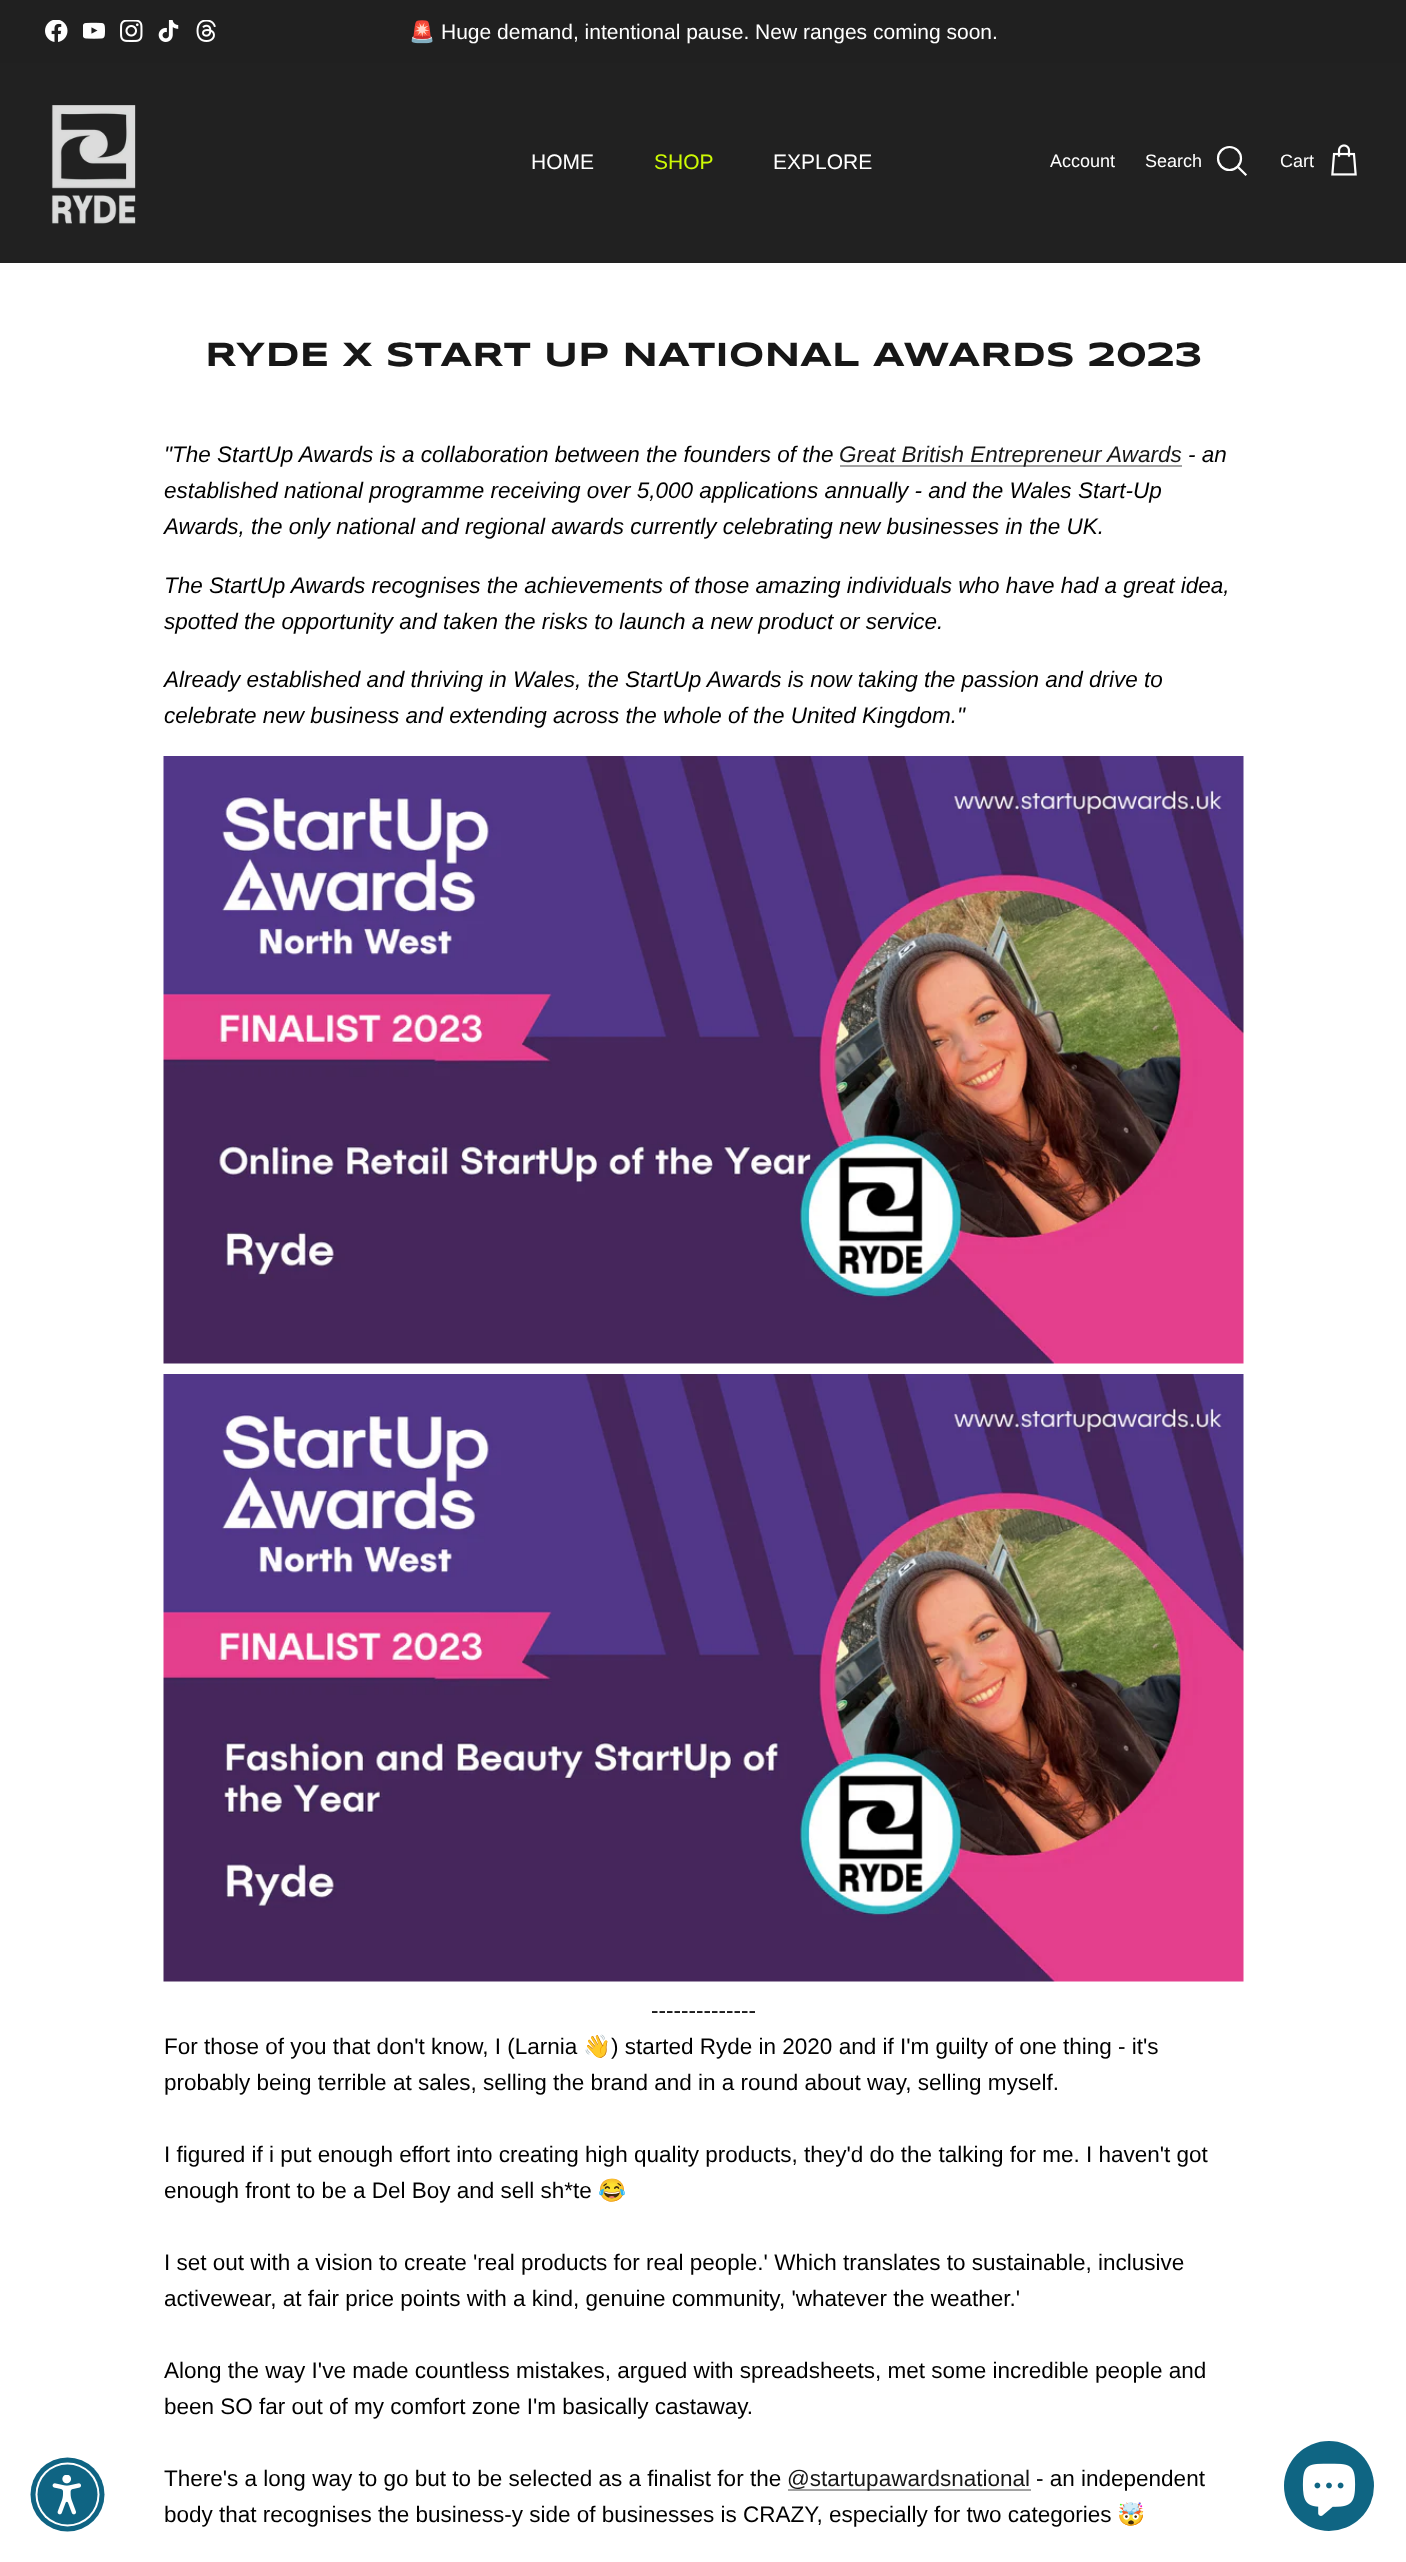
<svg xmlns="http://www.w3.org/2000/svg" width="1406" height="2562">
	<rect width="100%" height="100%" fill="#FFFFFF" />
	<rect x="0" y="0" width="1406" height="63" fill="#202020" />
	<image x="45" y="20" width="23" height="22" href="assets/img1.png" />
	<image x="83" y="22" width="22" height="17" href="assets/img2.png" />
	<image x="120" y="20" width="23" height="22" href="assets/img3.png" />
	<image x="158" y="20" width="21" height="22" href="assets/img4.png" />
	<image x="196" y="20" width="20" height="22" href="assets/img5.png" />
	<text x="409" y="39" font-family="Noto Color Emoji" font-size="21" fill="#FFFFFF">🚨</text>
	<text x="441" y="39" font-family="Arimo" font-size="21" fill="#FFFFFF">Huge demand, intentional pause. New ranges coming soon.</text>
	<rect x="0" y="63" width="1406" height="200" fill="#212121" />
	<image x="51" y="105" width="85" height="119" href="assets/img6.png" />
	<text x="531" y="169" font-family="Arimo" font-size="21" fill="#FFFFFF">HOME</text>
	<text x="654" y="169" font-family="Arimo" font-size="21" fill="#CDFA04">SHOP</text>
	<text x="773" y="169" font-family="Arimo" font-size="21" fill="#FFFFFF">EXPLORE</text>
	<g font-family="Arimo" font-size="18" fill="#FFFFFF">
		<text x="1050" y="167">Account</text>
		<text x="1145" y="167">Search</text>
	</g>
	<circle cx="1229.5" cy="158.5" r="11.5" fill="none" stroke="#FFFFFF" stroke-width="2.2" />
	<path d="M1239 168L1245.5 174.5" fill="none" stroke="#FFFFFF" stroke-width="2.2" stroke-linecap="square" />
	<text x="1280" y="167" font-family="Arimo" font-size="18" fill="#FFFFFF">Cart</text>
	<image x="1331" y="144" width="26" height="32" href="assets/img7.png" />
	<circle cx="67.5" cy="2494.5" r="37" fill="#0F6483" />
	<circle cx="67.5" cy="2494.5" r="32" fill="#FFFFFF" />
	<circle cx="67.5" cy="2494.5" r="30" fill="#0F6483" />
	<image x="52" y="2475" width="29" height="40" href="assets/img8.png" />
	<text x="205" y="366" font-family="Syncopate" font-size="34.5" font-weight="700" fill="#171717">RYDE X START UP NATIONAL AWARDS 2023</text>
	<text x="164" y="462" font-family="Arimo" font-size="22.5" font-style="italic" fill="#000000">"The StartUp Awards is a collaboration between the founders of the</text>
	<rect x="840" y="465" width="342" height="2" fill="#A2A2A2" />
	<text x="839" y="462" font-family="Arimo" font-size="22.5" font-style="italic" fill="#171717">Great British Entrepreneur Awards</text>
	<g font-family="Arimo" font-size="22.5" font-style="italic" fill="#000000">
		<text x="1188" y="462">- an</text>
		<text x="164" y="498">established national programme receiving over 5,000 applications annually - and the Wales Start-Up</text>
		<text x="164" y="534">Awards, the only national and regional awards currently celebrating new businesses in the UK.</text>
		<text x="164" y="593">The StartUp Awards recognises the achievements of those amazing individuals who have had a great idea,</text>
		<text x="164" y="629">spotted the opportunity and taken the risks to launch a new product or service.</text>
		<text x="164" y="687">Already established and thriving in Wales, the StartUp Awards is now taking the passion and drive to</text>
		<text x="164" y="723">celebrate new business and extending across the whole of the United Kingdom."</text>
	</g>
	<image x="163" y="756" width="1081" height="608" href="assets/img9.png" />
	<image x="163" y="1374" width="1081" height="608" href="assets/img10.png" />
	<g font-family="Arimo" font-size="22.5" fill="#000000">
		<text x="651" y="2018">--------------</text>
		<text x="164" y="2054">For those of you that don't know, I (Larnia</text>
	</g>
	<text x="583" y="2054" font-family="Noto Color Emoji" font-size="22.5" fill="#000000">👋</text>
	<g font-family="Arimo" font-size="22.5" fill="#000000">
		<text x="611" y="2054">) started Ryde in 2020 and if I'm guilty of one thing - it's</text>
		<text x="164" y="2090">probably being terrible at sales, selling the brand and in a round about way, selling myself.</text>
		<text x="164" y="2162">I figured if i put enough effort into creating high quality products, they'd do the talking for me. I haven't got</text>
		<text x="164" y="2198">enough front to be a Del Boy and sell sh*te</text>
	</g>
	<text x="598" y="2198" font-family="Noto Color Emoji" font-size="22.5" fill="#000000">😂</text>
	<g font-family="Arimo" font-size="22.5" fill="#000000">
		<text x="164" y="2270">I set out with a vision to create 'real products for real people.' Which translates to sustainable, inclusive</text>
		<text x="164" y="2306">activewear, at fair price points with a kind, genuine community, 'whatever the weather.'</text>
		<text x="164" y="2378">Along the way I've made countless mistakes, argued with spreadsheets, met some incredible people and</text>
		<text x="164" y="2414">been SO far out of my comfort zone I'm basically castaway.</text>
		<text x="164" y="2486">There's a long way to go but to be selected as a finalist for the</text>
	</g>
	<rect x="788" y="2489" width="243" height="2" fill="#A2A2A2" />
	<text x="787" y="2486" font-family="Arimo" font-size="22.5" fill="#171717">@startupawardsnational</text>
	<g font-family="Arimo" font-size="22.5" fill="#000000">
		<text x="1036" y="2486">- an independent</text>
		<text x="164" y="2522">body that recognises the business-y side of businesses is CRAZY, especially for two categories</text>
	</g>
	<text x="1117" y="2522" font-family="Noto Color Emoji" font-size="22.5" fill="#000000">🤯</text>
	<circle cx="1329" cy="2486" r="45" fill="#0F6583" />
	<image x="1302" y="2463" width="54" height="53" href="assets/img11.png" />
</svg>
